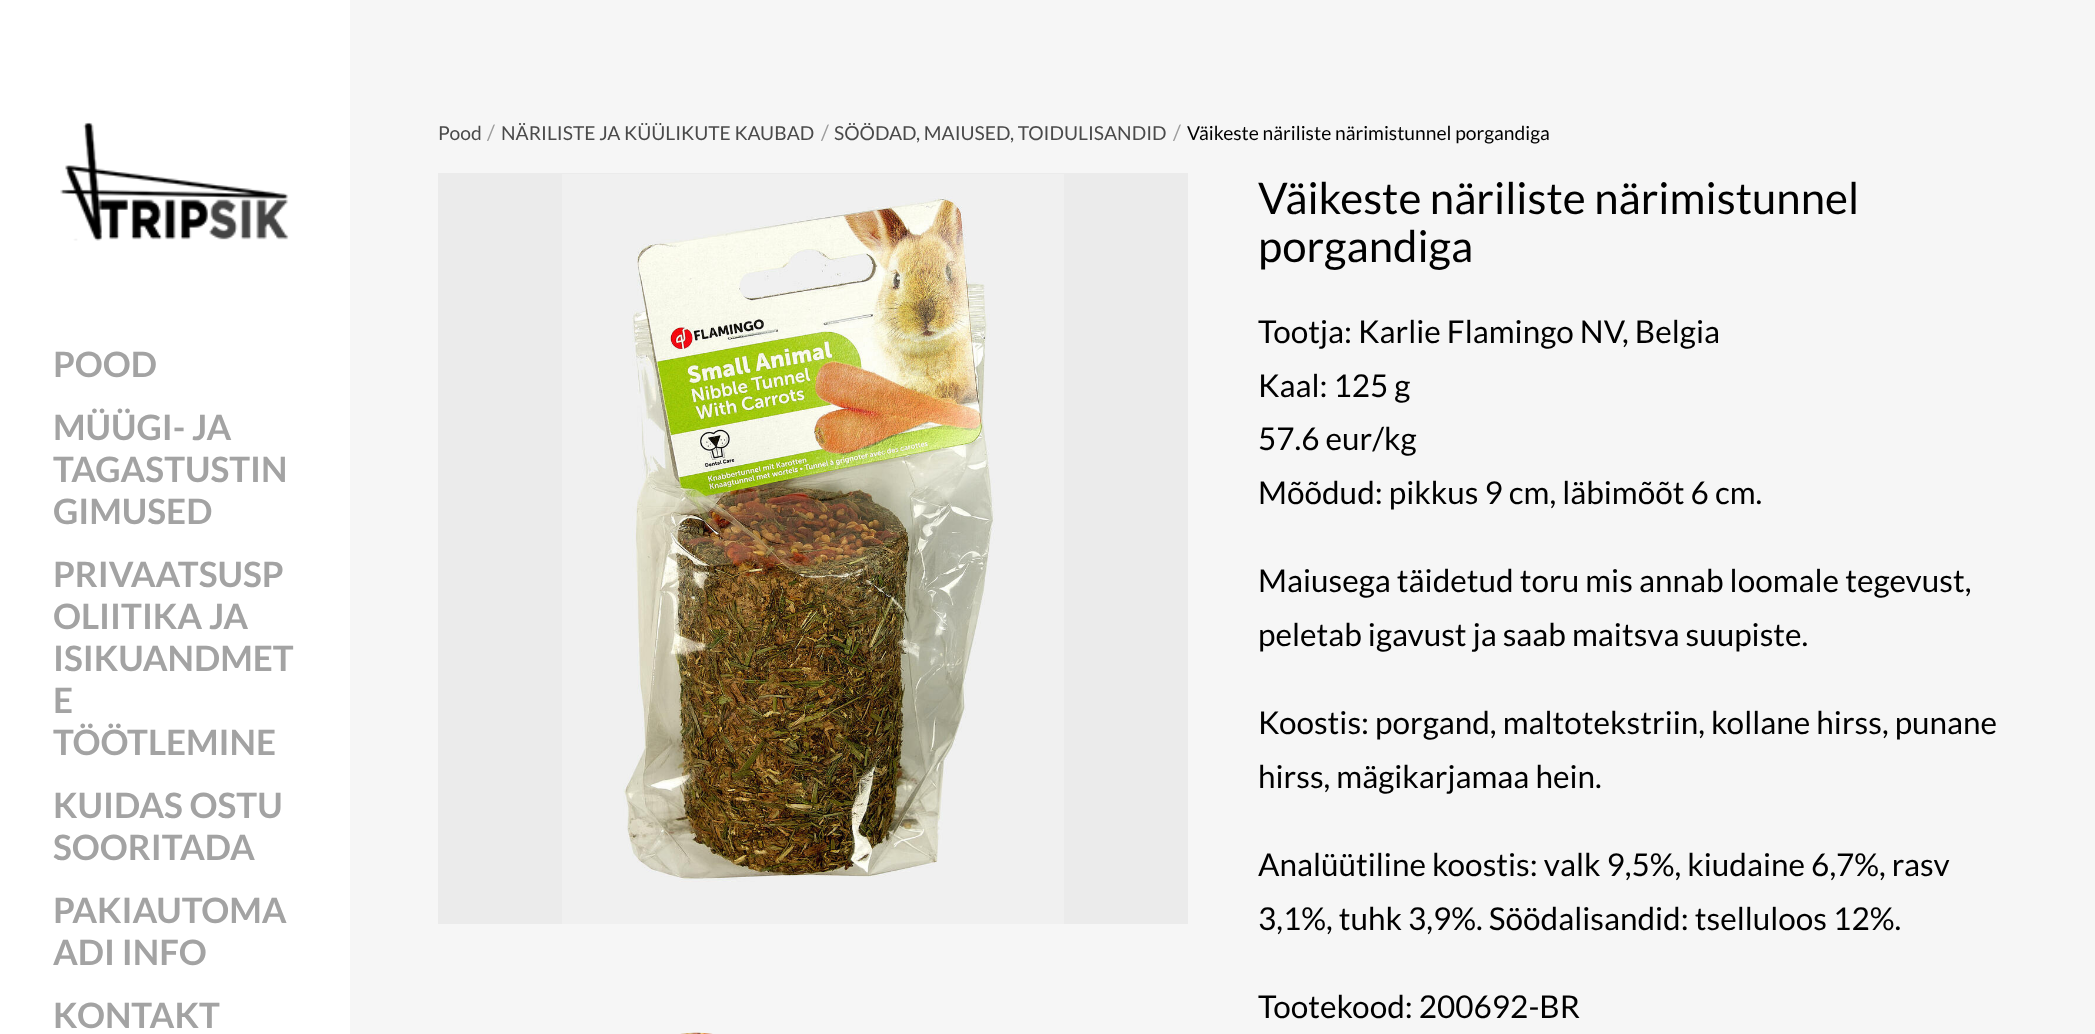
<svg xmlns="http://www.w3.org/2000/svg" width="2095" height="1034">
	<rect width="100%" height="100%" fill="#FFFFFF" />
	<image x="60" y="122" width="229" height="119" href="assets/img1.png" />
	<g font-family="Lato" font-size="35" font-weight="700" fill="#A3A3A3">
		<text x="53" y="377">POOD</text>
		<text x="53" y="440">MÜÜGI- JA</text>
		<text x="53" y="482">TAGASTUSTIN</text>
		<text x="53" y="524">GIMUSED</text>
		<text x="53" y="587">PRIVAATSUSP</text>
		<text x="53" y="629">OLIITIKA JA</text>
		<text x="53" y="671">ISIKUANDMET</text>
		<text x="53" y="713">E</text>
		<text x="53" y="755">TÖÖTLEMINE</text>
		<text x="53" y="818">KUIDAS OSTU</text>
		<text x="53" y="860">SOORITADA</text>
		<text x="53" y="923">PAKIAUTOMA</text>
		<text x="53" y="965">ADI INFO</text>
		<text x="53" y="1028">KONTAKT</text>
	</g>
	<rect x="350" y="0" width="1745" height="1034" fill="#F6F6F6" />
	<text x="438" y="140" font-family="Lato" font-size="19.25" fill="#4A4A4A">Pood</text>
	<text x="487" y="140" font-family="Lato" font-size="21" fill="#9D9D9D">/</text>
	<text x="501" y="140" font-family="Lato" font-size="19.25" fill="#4A4A4A">NÄRILISTE JA KÜÜLIKUTE KAUBAD</text>
	<text x="821" y="140" font-family="Lato" font-size="21" fill="#9D9D9D">/</text>
	<text x="834" y="140" font-family="Lato" font-size="19.25" fill="#4A4A4A">SÖÖDAD, MAIUSED, TOIDULISANDID</text>
	<text x="1173" y="140" font-family="Lato" font-size="21" fill="#9D9D9D">/</text>
	<text x="1187" y="140" font-family="Lato" font-size="19.25" fill="#000000">Väikeste näriliste närimistunnel porgandiga</text>
	<rect x="438" y="173" width="750" height="751" fill="#EBEBEB" />
	<image x="562" y="174" width="502" height="750" href="assets/img2.png" />
	<image x="680" y="1032" width="33" height="2" href="assets/img3.png" />
	<g font-family="Lato" font-size="43.75" fill="#000000">
		<text x="1258" y="214">Väikeste näriliste närimistunnel</text>
		<text x="1258" y="262">porgandiga</text>
	</g>
	<g font-family="Lato" font-size="31.5" fill="#000000">
		<text x="1258" y="343">Tootja: Karlie Flamingo NV, Belgia</text>
		<text x="1258" y="397">Kaal: 125 g</text>
		<text x="1258" y="450">57.6 eur/kg</text>
		<text x="1258" y="504">Mõõdud: pikkus 9 cm, läbimõõt 6 cm.</text>
		<text x="1258" y="592">Maiusega täidetud toru mis annab loomale tegevust,</text>
		<text x="1258" y="646">peletab igavust ja saab maitsva suupiste.</text>
		<text x="1258" y="734">Koostis: porgand, maltotekstriin, kollane hirss, punane</text>
		<text x="1258" y="788">hirss, mägikarjamaa hein.</text>
		<text x="1258" y="876">Analüütiline koostis: valk 9,5%, kiudaine 6,7%, rasv</text>
		<text x="1258" y="930">3,1%, tuhk 3,9%. Söödalisandid: tselluloos 12%.</text>
		<text x="1258" y="1018">Tootekood: 200692-BR</text>
	</g>
</svg>
